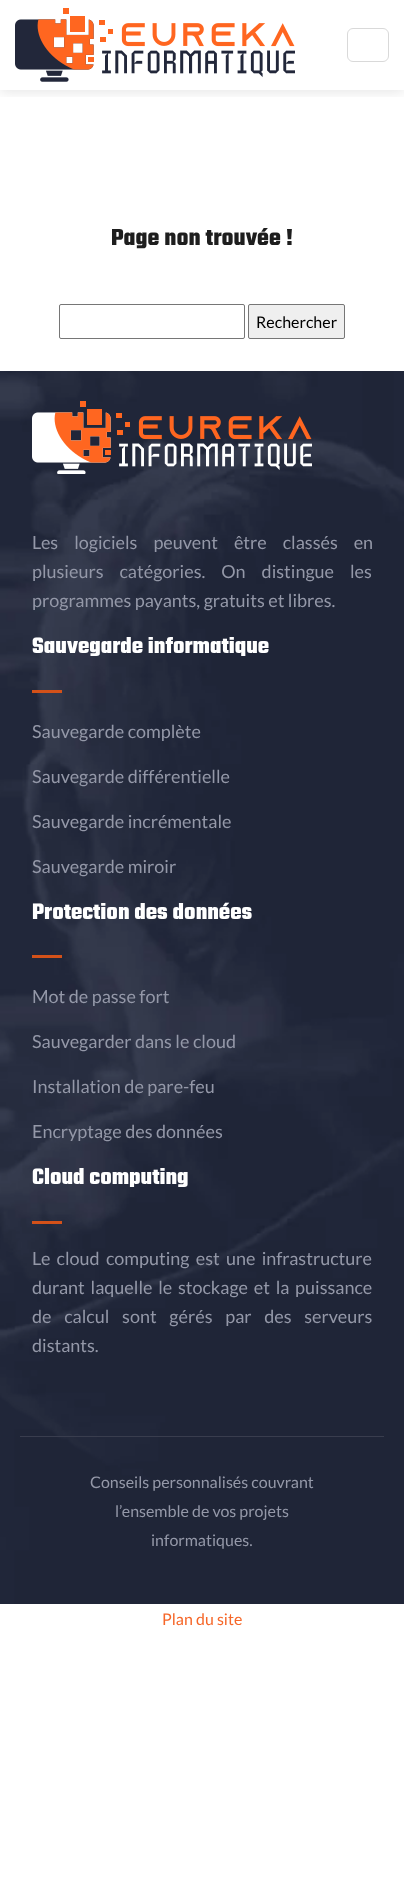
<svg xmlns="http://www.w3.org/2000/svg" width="404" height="1891">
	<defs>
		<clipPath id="clip1"><rect x="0" y="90" width="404" height="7" /></clipPath>
	</defs>
	<rect width="100%" height="100%" fill="#FFFFFF" />
	<g clip-path="url(#clip1)">
		<rect x="0" y="2" width="404" height="90" fill="#000000" fill-opacity="0.1" filter="blur(6.5px)" />
	</g>
	<image x="15" y="8" width="280" height="74" href="assets/img1.png" />
	<rect x="347.5" y="28.5" width="41" height="33" rx="5.5" fill="none" stroke="#D9D9D9" />
	<text x="111" y="245" font-family="Teko" font-size="25" font-weight="700" fill="#1E1E1E">Page non trouvée !</text>
	<rect x="59.5" y="304.5" width="185" height="34" rx="1.5" fill="none" stroke="#767676" />
	<rect x="248.5" y="304.5" width="96" height="34" rx="1.5" fill="#EFEFEF" stroke="#767676" />
	<text x="256" y="328" font-family="Lato" font-size="16" fill="#000000">Rechercher</text>
	<image x="0" y="371" width="404" height="1233" href="assets/img2.png" />
	<image x="32" y="401" width="280" height="73" href="assets/img3.png" />
	<g font-family="Lato" font-size="18" fill="#9498A8">
		<text x="32" y="549" word-spacing="12.5">Les logiciels peuvent être classés en</text>
		<text x="32" y="578" word-spacing="12.5">plusieurs catégories. On distingue les</text>
		<text x="32" y="607">programmes payants, gratuits et libres.</text>
	</g>
	<text x="32" y="653" font-family="Teko" font-size="24" font-weight="700" fill="#FFFFFF">Sauvegarde informatique</text>
	<rect x="32" y="690" width="30" height="3" fill="#D35119" />
	<g font-family="Lato" font-size="18" fill="#9498A8">
		<text x="32" y="738">Sauvegarde complète</text>
		<text x="32" y="783">Sauvegarde différentielle</text>
		<text x="32" y="828">Sauvegarde incrémentale</text>
		<text x="32" y="873">Sauvegarde miroir</text>
	</g>
	<text x="32" y="919" font-family="Teko" font-size="24" font-weight="700" fill="#FFFFFF">Protection des données</text>
	<rect x="32" y="955" width="30" height="3" fill="#D35119" />
	<g font-family="Lato" font-size="18" fill="#9498A8">
		<text x="32" y="1003">Mot de passe fort</text>
		<text x="32" y="1048">Sauvegarder dans le cloud</text>
		<text x="32" y="1093">Installation de pare-feu</text>
		<text x="32" y="1138">Encryptage des données</text>
	</g>
	<text x="32" y="1184" font-family="Teko" font-size="24" font-weight="700" fill="#FFFFFF">Cloud computing</text>
	<rect x="32" y="1221" width="30" height="3" fill="#D35119" />
	<g font-family="Lato" font-size="18" fill="#9498A8">
		<text x="32" y="1265" word-spacing="2.75">Le cloud computing est une infrastructure</text>
		<text x="32" y="1294" word-spacing="2.25">durant laquelle le stockage et la puissance</text>
		<text x="32" y="1323" word-spacing="9.25">de calcul sont gérés par des serveurs</text>
		<text x="32" y="1352">distants.</text>
	</g>
	<rect x="20" y="1436" width="364" height="1" fill="#393D4E" />
	<g font-family="Lato" font-size="16" fill="#9498A8">
		<text x="90" y="1488">Conseils personnalisés couvrant</text>
		<text x="115" y="1517">l’ensemble de vos projets</text>
		<text x="151" y="1546">informatiques.</text>
	</g>
	<text x="162" y="1625" font-family="Lato" font-size="16" fill="#F66729">Plan du site</text>
</svg>
